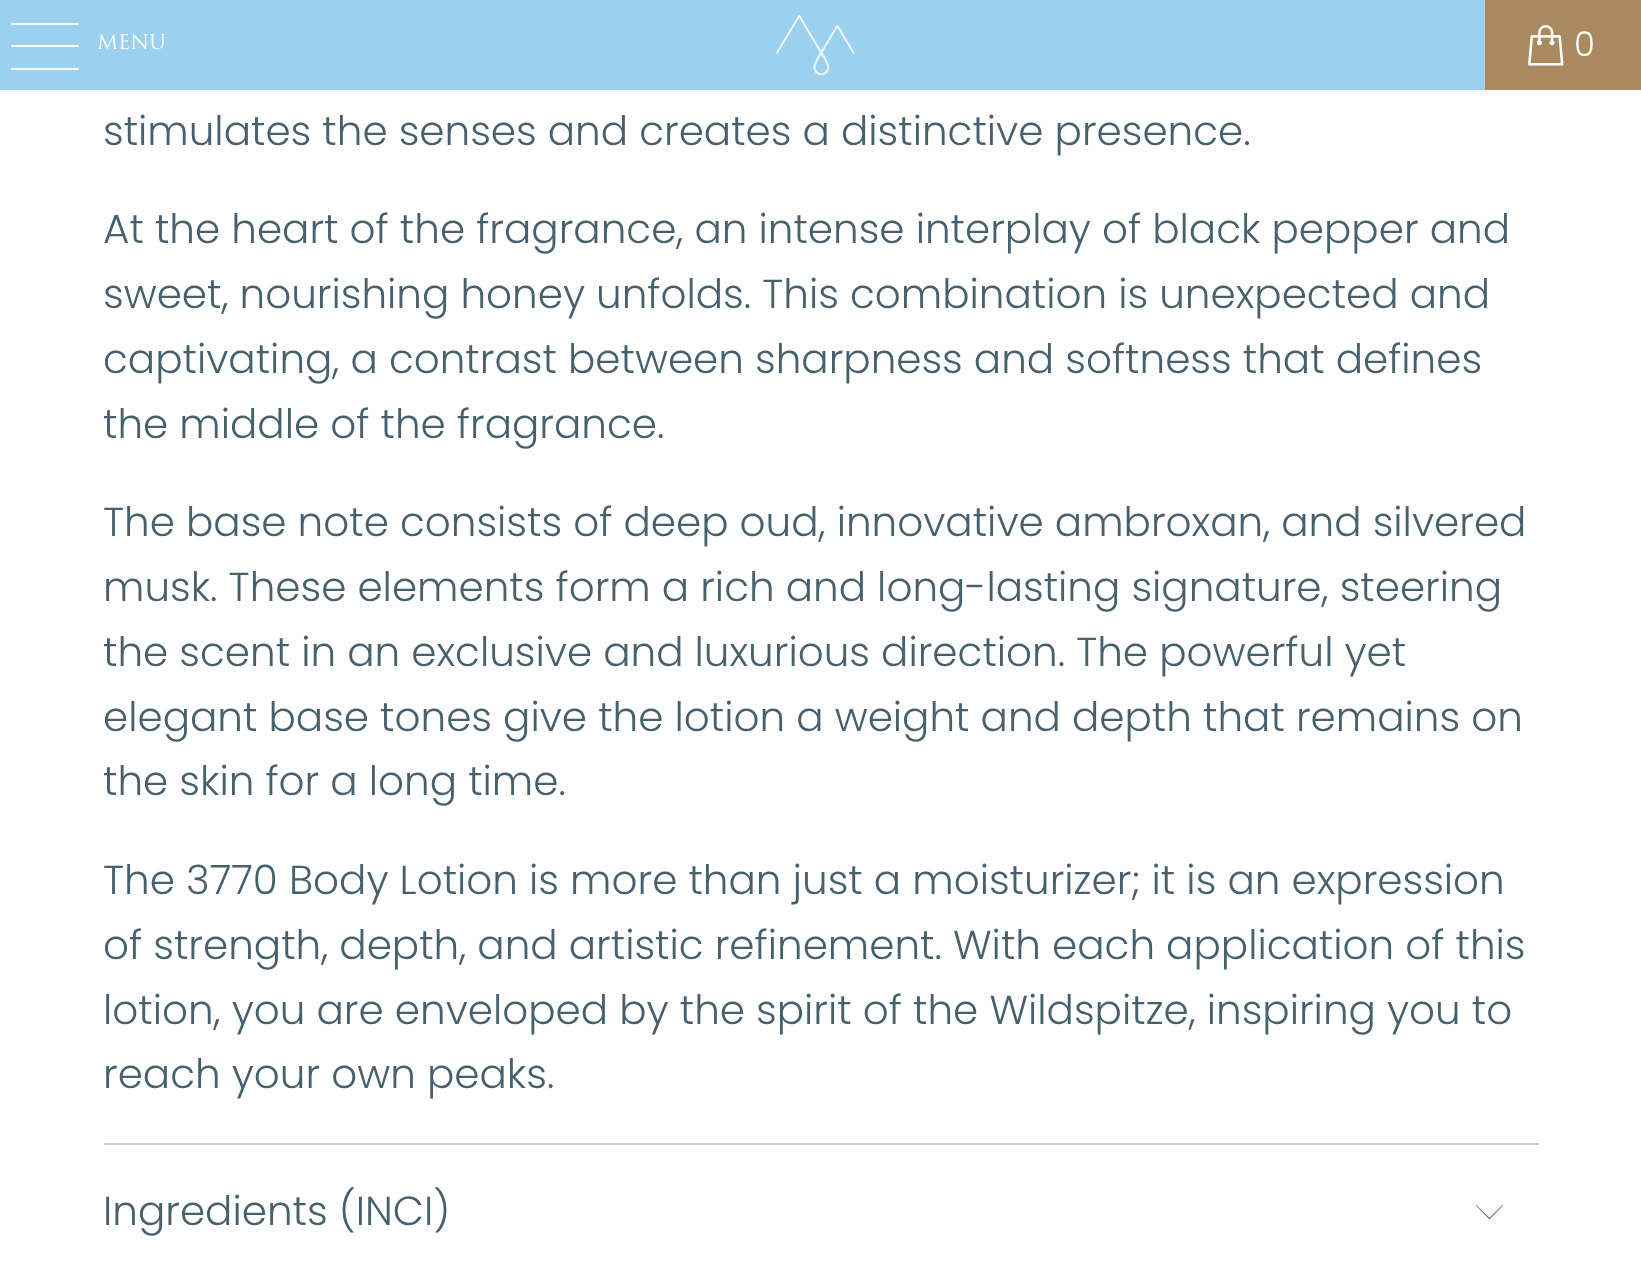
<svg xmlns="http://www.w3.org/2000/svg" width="1641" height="1273">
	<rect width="100%" height="100%" fill="#FFFFFF" />
	<rect x="0" y="0" width="1485" height="90" fill="#9BD1EE" />
	<rect x="11" y="23" width="68" height="2" rx="1" fill="#FFFFFF" />
	<rect x="11" y="45" width="68" height="2" rx="1" fill="#FFFFFF" />
	<rect x="11" y="68" width="68" height="2" rx="1" fill="#FFFFFF" />
	<text x="97" y="49" font-family="'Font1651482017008'" font-size="20" fill="#FFFFFF">MENU</text>
	<image x="776" y="14" width="79" height="62" href="assets/img1.png" />
	<rect x="1485" y="0" width="156" height="90" fill="#AA8961" />
	<image x="1528" y="25" width="36" height="41" href="assets/img2.png" />
	<text x="1574" y="56" font-family="Poppins" font-size="34" font-weight="300" letter-spacing="2" fill="#FFFFFF">0</text>
	<g font-family="Poppins" font-size="40.5" font-weight="300" fill="#47606E">
		<text x="103" y="145">stimulates the senses and creates a distinctive presence.</text>
		<text x="103" y="243">At the heart of the fragrance, an intense interplay of black pepper and</text>
		<text x="103" y="308">sweet, nourishing honey unfolds. This combination is unexpected and</text>
		<text x="103" y="373">captivating, a contrast between sharpness and softness that defines</text>
		<text x="103" y="438">the middle of the fragrance.</text>
		<text x="103" y="536">The base note consists of deep oud, innovative ambroxan, and silvered</text>
		<text x="103" y="601">musk. These elements form a rich and long-lasting signature, steering</text>
		<text x="103" y="666">the scent in an exclusive and luxurious direction. The powerful yet</text>
		<text x="103" y="731">elegant base tones give the lotion a weight and depth that remains on</text>
		<text x="103" y="795">the skin for a long time.</text>
		<text x="103" y="894">The 3770 Body Lotion is more than just a moisturizer; it is an expression</text>
		<text x="103" y="959">of strength, depth, and artistic refinement. With each application of this</text>
		<text x="103" y="1024">lotion, you are enveloped by the spirit of the Wildspitze, inspiring you to</text>
		<text x="103" y="1088">reach your own peaks.</text>
	</g>
	<rect x="104" y="1143" width="1435" height="2" fill="#CCCCCC" />
	<text x="103" y="1225" font-family="Poppins" font-size="40.5" font-weight="300" fill="#47606E">Ingredients (INCI)</text>
	<path d="M1489.5 1219.5L1476 1205.5L1476.5 1205L1489.5 1218L1502.5 1205L1503 1205.5Z" fill="#47606E" />
</svg>
